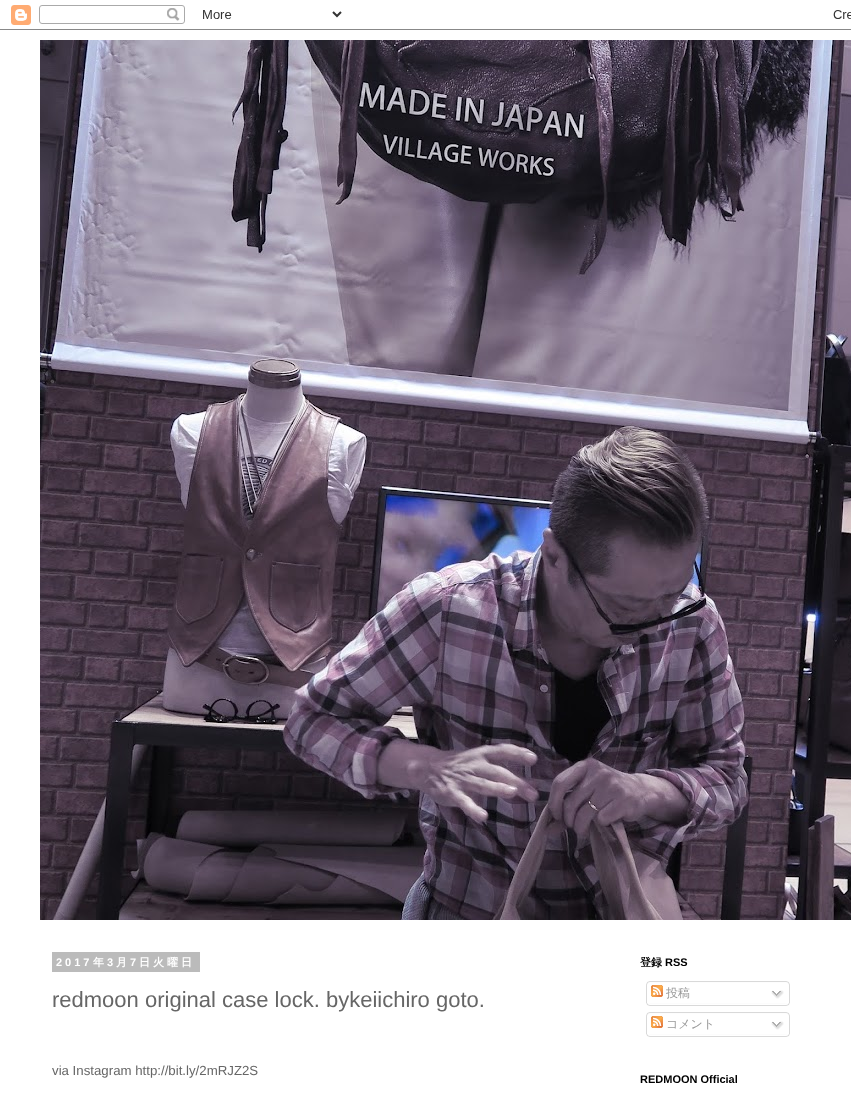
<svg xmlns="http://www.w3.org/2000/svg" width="851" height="1099">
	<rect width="100%" height="100%" fill="#FFFFFF" />
	<image x="0" y="5" width="851" height="25" href="assets/img1.png" />
	<image x="40" y="40" width="811" height="880" href="assets/img2.png" />
	<rect x="52" y="952" width="148" height="20" fill="#BBBBBB" />
	<text x="56" y="966" font-family="Liberation Sans" font-size="11" font-weight="700" letter-spacing="3" fill="#FFFFFF">2017</text>
	<text x="93" y="966" font-family="WenQuanYi Zen Hei" font-size="11" font-weight="700" letter-spacing="3" fill="#FFFFFF">年</text>
	<text x="107" y="966" font-family="Liberation Sans" font-size="11" font-weight="700" letter-spacing="3" fill="#FFFFFF">3</text>
	<text x="116" y="966" font-family="WenQuanYi Zen Hei" font-size="11" font-weight="700" letter-spacing="3" fill="#FFFFFF">月</text>
	<text x="130" y="966" font-family="Liberation Sans" font-size="11" font-weight="700" letter-spacing="3" fill="#FFFFFF">7</text>
	<text x="139" y="966" font-family="WenQuanYi Zen Hei" font-size="11" font-weight="700" letter-spacing="3" fill="#FFFFFF">日火曜日</text>
	<text x="52" y="1007" font-family="Liberation Sans" font-size="22" fill="#666666">redmoon original case lock. bykeiichiro goto.</text>
	<text x="52" y="1075" font-family="Liberation Sans" font-size="13.25" fill="#666666">via Instagram http://bit.ly/2mRJZ2S</text>
	<text x="640" y="966" font-family="WenQuanYi Zen Hei" font-size="11" font-weight="700" fill="#000000">登録</text>
	<text x="665" y="966" font-family="Liberation Sans" font-size="11" font-weight="700" fill="#000000">RSS</text>
	<image x="646" y="981" width="144" height="22" href="assets/img3.png" />
	<image x="651" y="985" width="12" height="12" href="assets/img4.png" />
	<text x="666" y="997" font-family="WenQuanYi Zen Hei" font-size="12" font-weight="500" fill="#999999">投稿</text>
	<image x="771" y="990" width="13" height="9" href="assets/img5.png" />
	<image x="646" y="1003" width="144" height="3" href="assets/img6.png" />
	<image x="646" y="1012" width="144" height="22" href="assets/img3.png" />
	<image x="651" y="1016" width="12" height="12" href="assets/img4.png" />
	<text x="666" y="1028" font-family="WenQuanYi Zen Hei" font-size="12" font-weight="500" fill="#999999">コメント</text>
	<image x="771" y="1021" width="13" height="9" href="assets/img5.png" />
	<image x="646" y="1034" width="144" height="3" href="assets/img6.png" />
	<text x="640" y="1083" font-family="Liberation Sans" font-size="11" font-weight="700" fill="#000000">REDMOON Official</text>
</svg>
